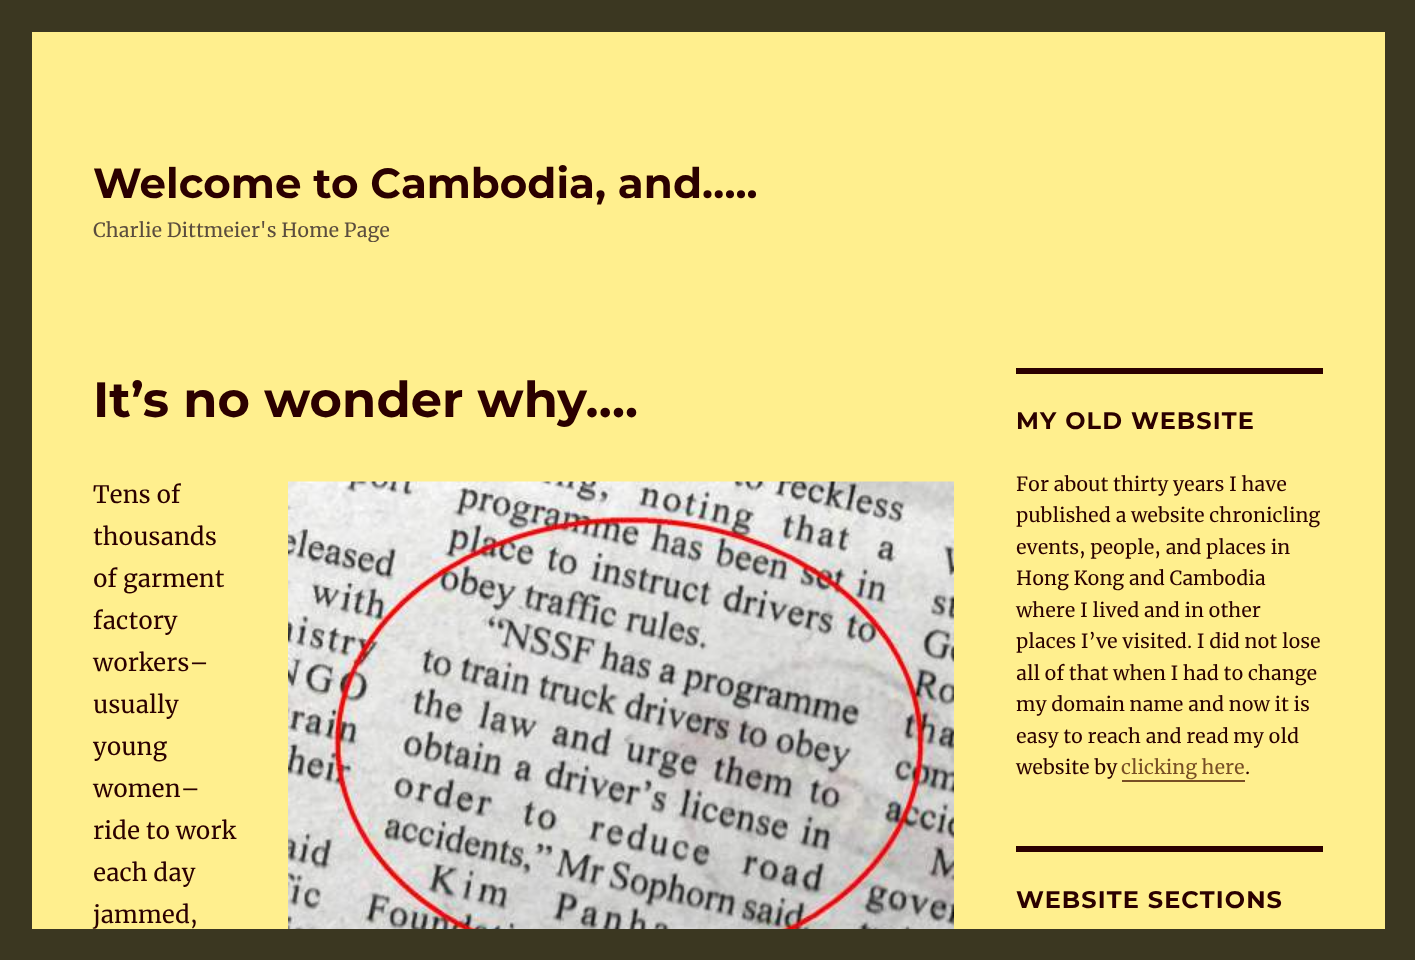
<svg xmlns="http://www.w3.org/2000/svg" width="1415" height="960">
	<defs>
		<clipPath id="clip1"><rect x="93" y="158" width="665" height="84" /></clipPath>
	</defs>
	<rect width="100%" height="100%" fill="#3B3721" />
	<rect x="32" y="32" width="1353" height="897" fill="#FFEF8E" />
	<text x="93" y="198" font-family="Montserrat" font-size="42" font-weight="100" fill="#2B0000">Welcome to Cambodia, and…..</text>
	<g clip-path="url(#clip1)">
		<text x="93" y="237" font-family="Merriweather" font-size="19.5" fill="#5B4D3E">Charlie Dittmeier's Home Page</text>
	</g>
	<text x="93" y="417" font-family="Montserrat" font-size="49.5" font-weight="100" fill="#2B0000">It’s no wonder why….</text>
	<text x="93" y="503" font-family="Merriweather" font-size="24" fill="#2B0000">Tens of</text>
	<image x="288" y="481" width="666" height="448" href="assets/img1.png" />
	<g font-family="Merriweather" font-size="24" fill="#2B0000">
		<text x="93" y="545">thousands</text>
		<text x="93" y="587">of garment</text>
		<text x="93" y="629">factory</text>
		<text x="93" y="671">workers–</text>
		<text x="93" y="713">usually</text>
		<text x="93" y="755">young</text>
		<text x="93" y="797">women–</text>
		<text x="93" y="839">ride to work</text>
		<text x="93" y="881">each day</text>
		<text x="93" y="923">jammed,</text>
	</g>
	<rect x="1016" y="368" width="307" height="6" fill="#2B0000" />
	<text x="1016" y="429" font-family="Montserrat" font-size="24" font-weight="100" letter-spacing="1.1" fill="#2B0000">MY OLD WEBSITE</text>
	<g font-family="Merriweather" font-size="19.5" fill="#2B0000">
		<text x="1016" y="491">For about thirty years I have</text>
		<text x="1016" y="522">published a website chronicling</text>
		<text x="1016" y="554">events, people, and places in</text>
		<text x="1016" y="585">Hong Kong and Cambodia</text>
		<text x="1016" y="617">where I lived and in other</text>
		<text x="1016" y="648">places I’ve visited. I did not lose</text>
		<text x="1016" y="680">all of that when I had to change</text>
		<text x="1016" y="711">my domain name and now it is</text>
		<text x="1016" y="743">easy to reach and read my old</text>
		<text x="1016" y="774">website by</text>
	</g>
	<text x="1121" y="774" font-family="Merriweather" font-size="19.5" fill="#774E24">clicking here</text>
	<rect x="1122" y="780" width="123" height="2" fill="#774E24" />
	<text x="1245" y="774" font-family="Merriweather" font-size="19.5" fill="#2B0000">.</text>
	<rect x="1016" y="846" width="307" height="6" fill="#2B0000" />
	<text x="1016" y="908" font-family="Montserrat" font-size="24" font-weight="100" letter-spacing="1.1" fill="#2B0000">WEBSITE SECTIONS</text>
</svg>
